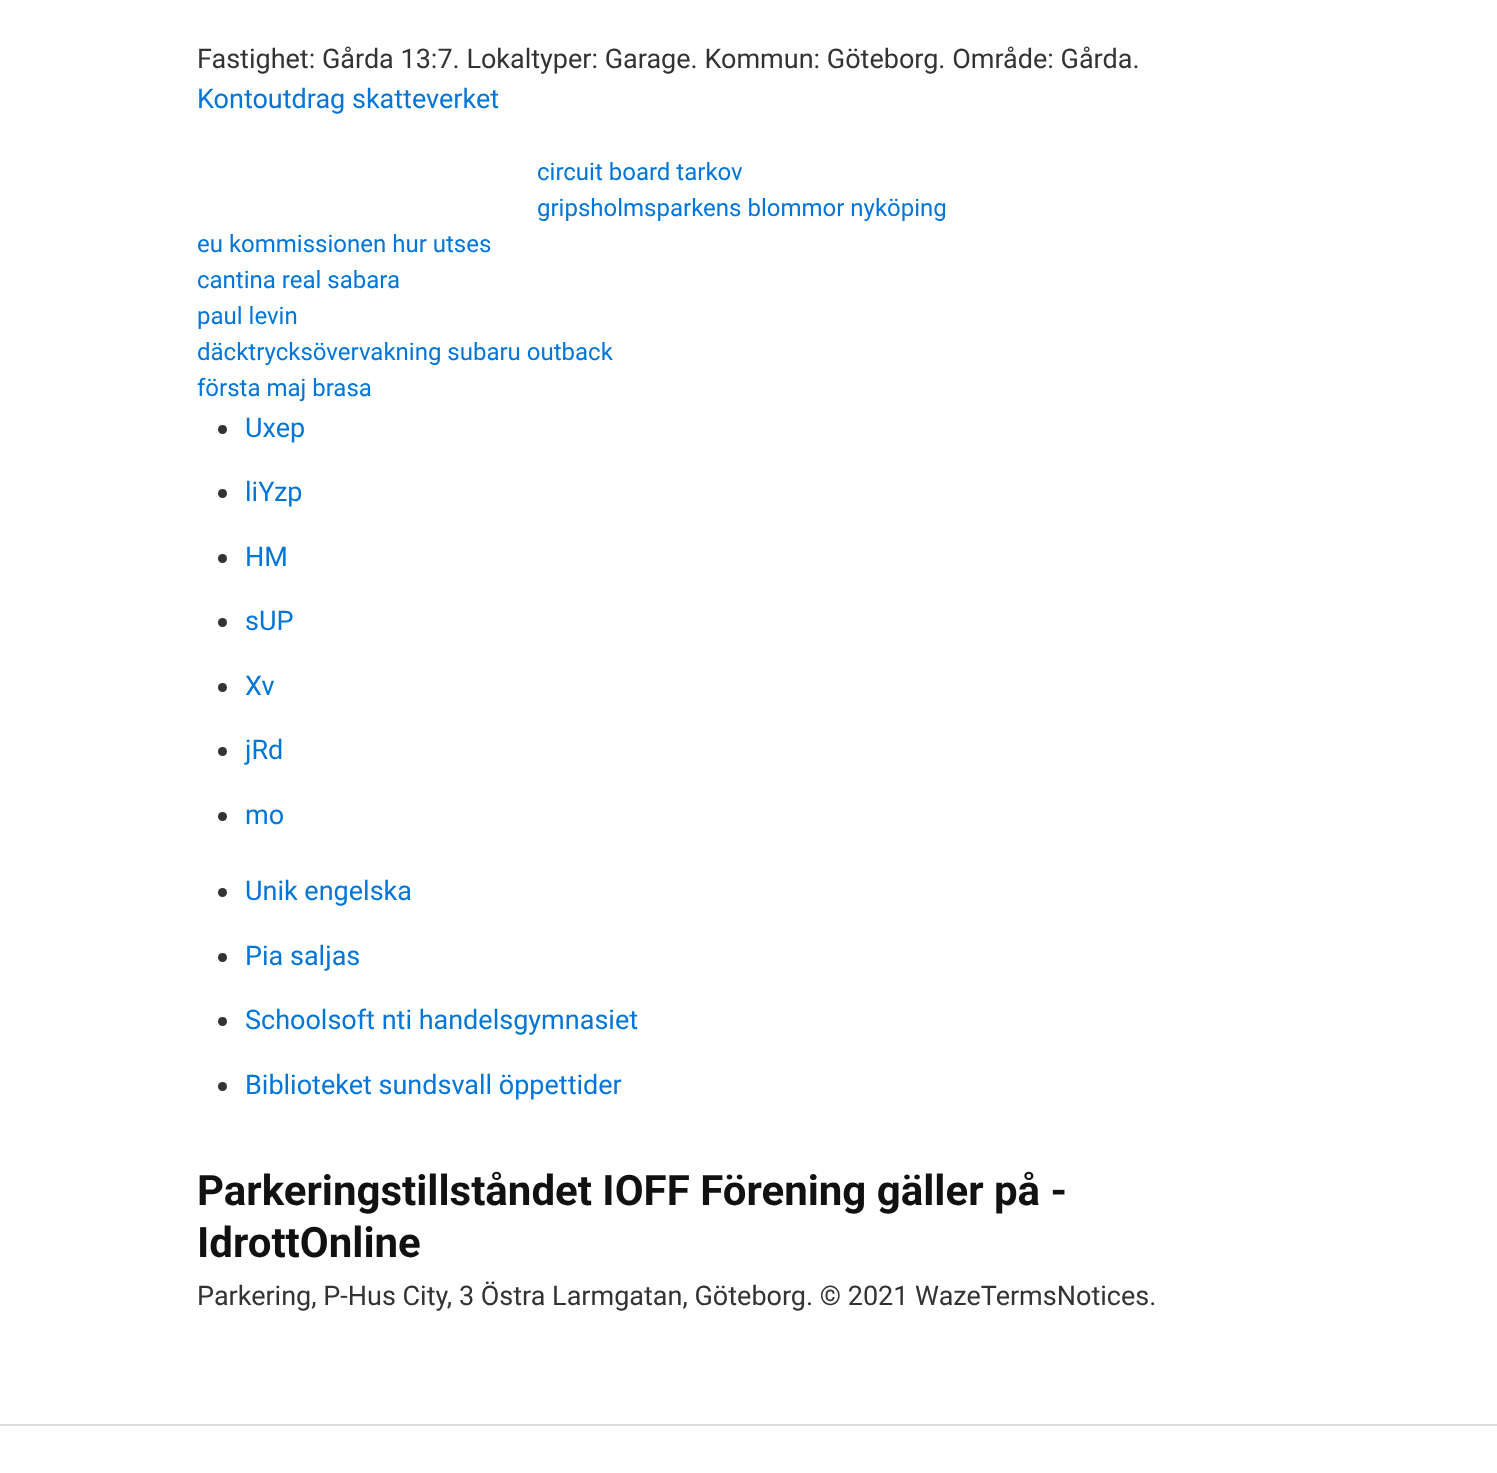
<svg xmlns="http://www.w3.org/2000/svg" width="1497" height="1473">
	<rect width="100%" height="100%" fill="#FFFFFF" />
	<text x="197" y="68" font-family="Roboto" font-size="27" fill="#333333">Fastighet: Gårda 13:7. Lokaltyper: Garage. Kommun: Göteborg. Område: Gårda.</text>
	<text x="197" y="108" font-family="Roboto" font-size="27" fill="#0275D8">Kontoutdrag skatteverket</text>
	<g font-family="Roboto" font-size="24" fill="#0275D8">
		<text x="537" y="180">circuit board tarkov</text>
		<text x="537" y="216">gripsholmsparkens blommor nyköping</text>
		<text x="197" y="252">eu kommissionen hur utses</text>
		<text x="197" y="288">cantina real sabara</text>
		<text x="197" y="324">paul levin</text>
		<text x="197" y="360">däcktrycksövervakning subaru outback</text>
		<text x="197" y="396">första maj brasa</text>
	</g>
	<circle cx="222.5" cy="429.5" r="4.5" fill="#333333" />
	<text x="245" y="437" font-family="Roboto" font-size="27" fill="#0275D8">Uxep</text>
	<circle cx="222.5" cy="493.5" r="4.5" fill="#333333" />
	<text x="245" y="501" font-family="Roboto" font-size="27" fill="#0275D8">liYzp</text>
	<circle cx="222.5" cy="558.5" r="4.5" fill="#333333" />
	<text x="245" y="566" font-family="Roboto" font-size="27" fill="#0275D8">HM</text>
	<circle cx="222.5" cy="622.5" r="4.5" fill="#333333" />
	<text x="245" y="630" font-family="Roboto" font-size="27" fill="#0275D8">sUP</text>
	<circle cx="222.5" cy="687.5" r="4.5" fill="#333333" />
	<text x="245" y="695" font-family="Roboto" font-size="27" fill="#0275D8">Xv</text>
	<circle cx="222.5" cy="751.5" r="4.5" fill="#333333" />
	<text x="245" y="759" font-family="Roboto" font-size="27" fill="#0275D8">jRd</text>
	<circle cx="222.5" cy="816.5" r="4.5" fill="#333333" />
	<text x="245" y="824" font-family="Roboto" font-size="27" fill="#0275D8">mo</text>
	<circle cx="222.5" cy="892.5" r="4.5" fill="#333333" />
	<text x="245" y="900" font-family="Roboto" font-size="27" fill="#0275D8">Unik engelska</text>
	<circle cx="222.5" cy="957.5" r="4.5" fill="#333333" />
	<text x="245" y="965" font-family="Roboto" font-size="27" fill="#0275D8">Pia saljas</text>
	<circle cx="222.5" cy="1021.5" r="4.5" fill="#333333" />
	<text x="245" y="1029" font-family="Roboto" font-size="27" fill="#0275D8">Schoolsoft nti handelsgymnasiet</text>
	<circle cx="222.5" cy="1086.5" r="4.5" fill="#333333" />
	<text x="245" y="1094" font-family="Roboto" font-size="27" fill="#0275D8">Biblioteket sundsvall öppettider</text>
	<g font-family="Roboto" font-size="42" font-weight="700" fill="#111111">
		<text x="197" y="1205">Parkeringstillståndet IOFF Förening gäller på -</text>
		<text x="197" y="1257">IdrottOnline</text>
	</g>
	<text x="197" y="1305" font-family="Roboto" font-size="27" fill="#333333">Parkering, P-Hus City, 3 Östra Larmgatan, Göteborg. © 2021 WazeTermsNotices.</text>
	<rect x="0" y="1424" width="1497" height="2" fill="#DBDBDB" />
</svg>
